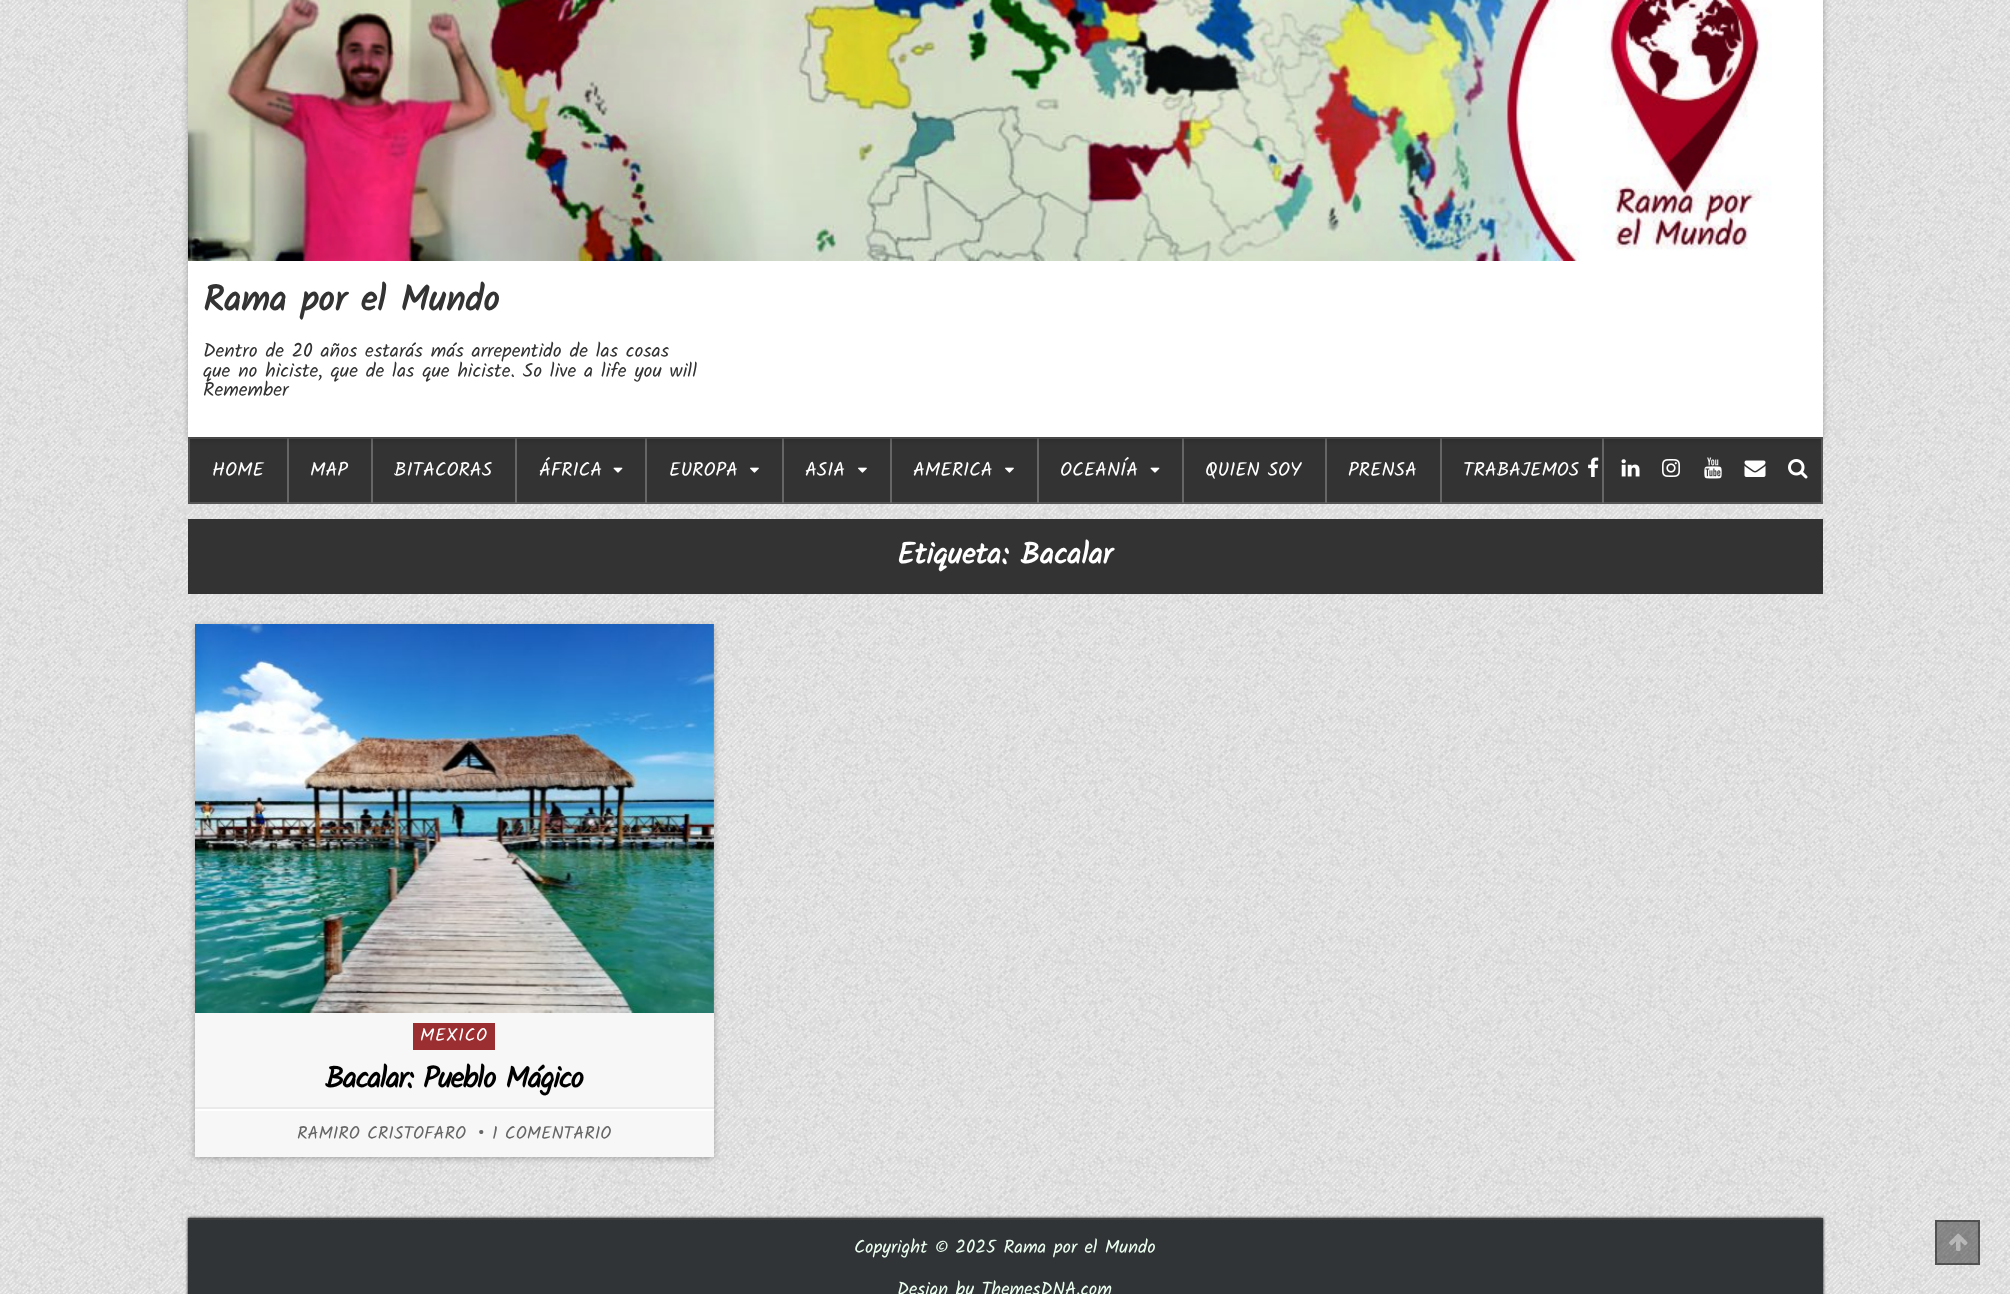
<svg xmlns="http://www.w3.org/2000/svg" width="2010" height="1294">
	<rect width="100%" height="100%" fill="#FFFFFF" />
	<image x="0" y="0" width="2010" height="1294" href="assets/img1.png" />
	<rect x="189" y="438" width="1633" height="65" fill="#333333" stroke="#555555" stroke-width="2" />
	<rect x="287" y="438" width="2" height="65" fill="#666666" />
	<rect x="371" y="438" width="2" height="65" fill="#666666" />
	<rect x="515" y="438" width="2" height="65" fill="#666666" />
	<rect x="645" y="438" width="2" height="65" fill="#666666" />
	<rect x="782" y="438" width="2" height="65" fill="#666666" />
	<rect x="890" y="438" width="2" height="65" fill="#666666" />
	<rect x="1037" y="438" width="2" height="65" fill="#666666" />
	<rect x="1182" y="438" width="2" height="65" fill="#666666" />
	<rect x="1325" y="438" width="2" height="65" fill="#666666" />
	<rect x="1440" y="438" width="2" height="65" fill="#666666" />
	<rect x="1602" y="438" width="2" height="65" fill="#666666" />
	<rect x="188" y="-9" width="1635" height="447" fill="#000000" fill-opacity="0.3" filter="blur(3px)" />
	<rect x="188" y="0" width="1635" height="437" fill="#FFFFFF" />
	<image x="188" y="0" width="1584" height="261" href="assets/img2.png" />
	<text x="203" y="311" font-family="Kalam" font-size="36" font-weight="700" fill="#333333">Rama por el Mundo</text>
	<g font-family="Kalam" font-size="19.5" fill="#333333">
		<text x="203" y="357">Dentro de 20 años estarás más arrepentido de las cosas</text>
		<text x="203" y="377">que no hiciste, que de las que hiciste. So live a life you will</text>
		<text x="203" y="396">Remember</text>
	</g>
	<g font-family="Kalam" font-size="19.5" fill="#FFFFFF">
		<text x="212" y="476">HOME</text>
		<text x="310" y="476">MAP</text>
		<text x="394" y="476">BITACORAS</text>
		<text x="539" y="476">ÁFRICA</text>
	</g>
	<image x="613" y="467" width="10" height="6" href="assets/img3.png" />
	<text x="669" y="476" font-family="Kalam" font-size="19.5" fill="#FFFFFF">EUROPA</text>
	<image x="750" y="467" width="9" height="6" href="assets/img4.png" />
	<text x="805" y="476" font-family="Kalam" font-size="19.5" fill="#FFFFFF">ASIA</text>
	<image x="858" y="467" width="9" height="6" href="assets/img4.png" />
	<text x="913" y="476" font-family="Kalam" font-size="19.5" fill="#FFFFFF">AMERICA</text>
	<image x="1005" y="467" width="9" height="6" href="assets/img4.png" />
	<text x="1060" y="476" font-family="Kalam" font-size="19.5" fill="#FFFFFF">OCEANÍA</text>
	<image x="1150" y="467" width="10" height="6" href="assets/img3.png" />
	<g font-family="Kalam" font-size="19.5" fill="#FFFFFF">
		<text x="1205" y="476">QUIEN SOY</text>
		<text x="1348" y="476">PRENSA</text>
		<text x="1463" y="476">TRABAJEMOS</text>
	</g>
	<image x="1588" y="457" width="11" height="20" href="assets/img5.png" />
	<image x="1621" y="459" width="19" height="18" href="assets/img6.png" />
	<image x="1662" y="459" width="18" height="18" href="assets/img7.png" />
	<image x="1704" y="457" width="18" height="22" href="assets/img8.png" />
	<image x="1744" y="460" width="22" height="17" href="assets/img9.png" />
	<image x="1788" y="459" width="20" height="20" href="assets/img10.png" />
	<rect x="188" y="519" width="1635" height="75" fill="#333333" />
	<text x="897" y="564" font-family="Kalam" font-size="30" font-weight="700" fill="#FFFFFF">Etiqueta: Bacalar</text>
	<rect x="195" y="626" width="519" height="532" fill="#000000" fill-opacity="0.3" filter="blur(3px)" />
	<rect x="195" y="624" width="519" height="533" fill="#F7F7F7" />
	<image x="195" y="624" width="519" height="389" href="assets/img11.png" />
	<rect x="413" y="1023" width="82" height="27" fill="#9A2E31" />
	<text x="420" y="1041" font-family="Kalam" font-size="18" letter-spacing="0.75" fill="#FFFFFF">MEXICO</text>
	<rect x="195" y="1107" width="519" height="2" fill="#EAEAEA" />
	<text x="325" y="1088" font-family="Kalam" font-size="30" font-weight="700" letter-spacing="-1.5" fill="#000000">Bacalar: Pueblo Mágico</text>
	<rect x="195" y="1109" width="519" height="2" fill="#FFFFFF" />
	<text x="297" y="1139" font-family="Kalam" font-size="18" fill="#666666">RAMIRO CRISTOFARO</text>
	<text x="478" y="1139" font-family="Oswald" font-size="18" fill="#666666">•</text>
	<text x="492" y="1139" font-family="Kalam" font-size="18" fill="#666666">1 COMENTARIO</text>
	<rect x="188" y="1218" width="1635" height="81" fill="#000000" filter="blur(1.5px)" />
	<rect x="188" y="1220" width="1635" height="74" fill="#303436" />
	<rect x="188" y="1218" width="1635" height="2" fill="#3D3D3D" />
	<g font-family="Kalam" font-size="18.5" fill="#ECFFF1">
		<text x="854" y="1253">Copyright © 2025 Rama por el Mundo</text>
		<text x="897" y="1295">Design by ThemesDNA.com</text>
	</g>
	<rect x="1935" y="1220" width="45" height="45" fill="#000000" fill-opacity="0.4" />
	<rect x="1936" y="1221" width="43" height="43" fill="none" stroke="#000000" stroke-opacity="0.4" stroke-width="2" />
	<image x="1949" y="1233" width="19" height="18" href="assets/img12.png" />
</svg>
